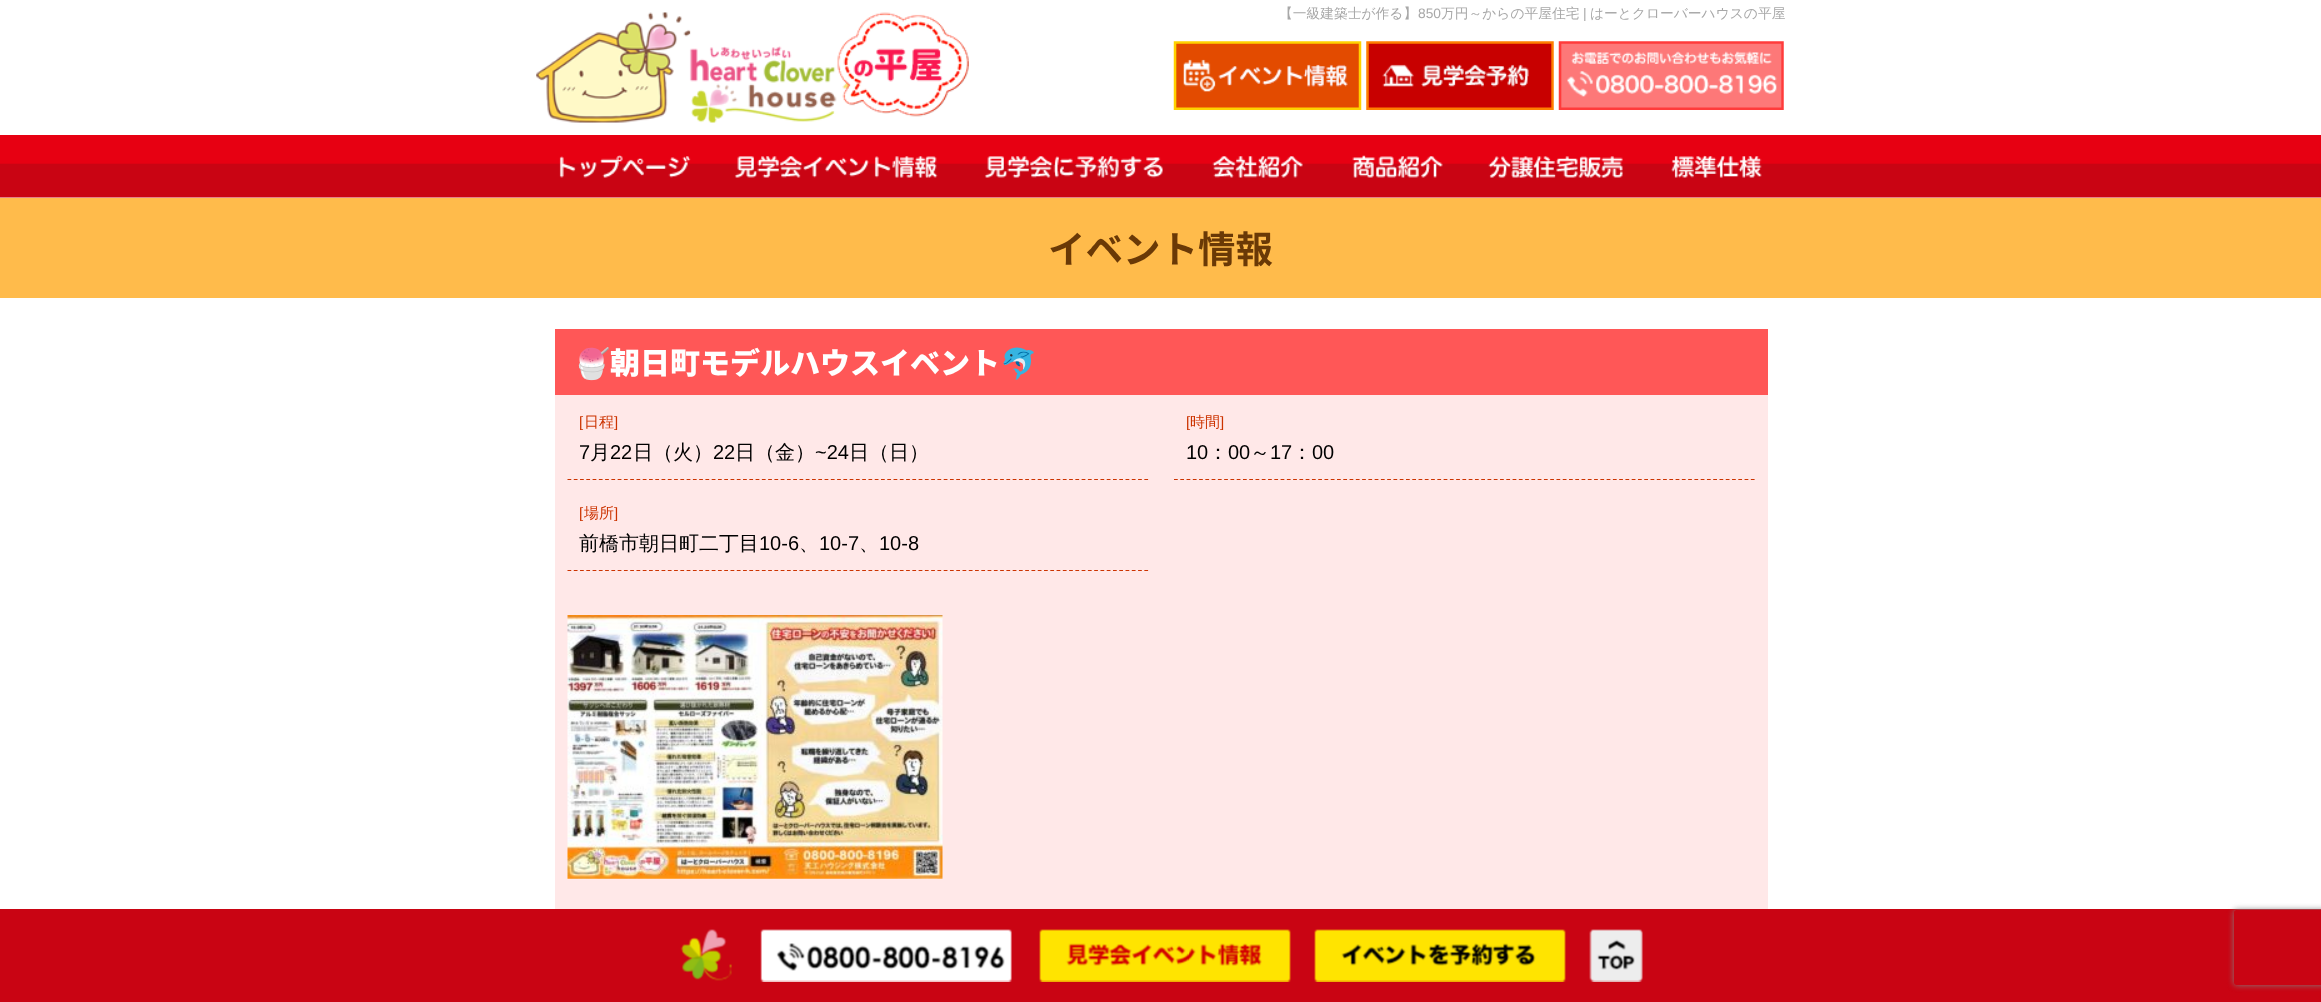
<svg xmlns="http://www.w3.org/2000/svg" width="2321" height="1002">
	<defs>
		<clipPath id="clip1"><path d="M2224 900H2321V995H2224ZM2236.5 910H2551.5C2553 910 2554 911 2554 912.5V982.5C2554 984 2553 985 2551.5 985H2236.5C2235 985 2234 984 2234 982.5V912.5C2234 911 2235 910 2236.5 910Z" clip-rule="evenodd" /></clipPath>
	</defs>
	<rect width="100%" height="100%" fill="#FFFFFF" />
	<image x="536" y="12" width="433" height="111" href="assets/img1.png" />
	<text x="1279" y="18" font-family="WenQuanYi Zen Hei" font-size="13.75" font-weight="500" fill="#A8A8A8">【一級建築士が作る】</text>
	<text x="1418" y="18" font-family="Liberation Sans" font-size="13.75" fill="#A8A8A8">850</text>
	<text x="1441" y="18" font-family="WenQuanYi Zen Hei" font-size="13.75" font-weight="500" fill="#A8A8A8">万円～からの平屋住宅</text>
	<text x="1583" y="18" font-family="Liberation Sans" font-size="13.75" fill="#A8A8A8">|</text>
	<text x="1590" y="18" font-family="WenQuanYi Zen Hei" font-size="13.75" font-weight="500" fill="#A8A8A8">はーとクローバーハウスの平屋</text>
	<image x="1173" y="41" width="189" height="69" href="assets/img2.png" />
	<image x="1366" y="41" width="188" height="69" href="assets/img3.png" />
	<image x="1558" y="41" width="226" height="69" href="assets/img4.png" />
	<image x="0" y="135" width="2321" height="63" href="assets/img5.png" />
	<image x="559" y="155" width="132" height="23" href="assets/img6.png" />
	<image x="734" y="156" width="204" height="22" href="assets/img7.png" />
	<image x="984" y="156" width="179" height="22" href="assets/img8.png" />
	<image x="1212" y="156" width="91" height="22" href="assets/img9.png" />
	<image x="1352" y="155" width="91" height="23" href="assets/img10.png" />
	<image x="1488" y="156" width="135" height="23" href="assets/img11.png" />
	<image x="1671" y="155" width="91" height="23" href="assets/img12.png" />
	<rect x="0" y="198" width="2321" height="100" fill="#FFBB4B" />
	<text x="1048" y="263" font-family="Noto Sans JP" font-size="37.5" font-weight="700" fill="#6A3906">イベント情報</text>
	<rect x="555" y="329" width="1213" height="66" fill="#FF5757" />
	<text x="573" y="374" font-family="Noto Color Emoji" font-size="30" font-weight="700" fill="#FFFFFF">🍧</text>
	<text x="610" y="374" font-family="Noto Sans JP" font-size="30" font-weight="900" fill="#FFFFFF">朝日町モデルハウスイベント</text>
	<text x="1000" y="374" font-family="Noto Color Emoji" font-size="30" font-weight="700" fill="#FFFFFF">🐬</text>
	<rect x="555" y="395" width="1213" height="514" fill="#FFE8E8" />
	<path d="M567.5 479.5H1149" fill="none" stroke="#CC3300" stroke-width="1.2" stroke-dasharray="3.75 2.52" />
	<text x="579" y="427" font-family="Liberation Sans" font-size="15" fill="#CC3300">[</text>
	<text x="584" y="427" font-family="WenQuanYi Zen Hei" font-size="15" font-weight="500" fill="#CC3300">日程</text>
	<text x="614" y="427" font-family="Liberation Sans" font-size="15" fill="#CC3300">]</text>
	<text x="579" y="459" font-family="Liberation Sans" font-size="20" fill="#000000">7</text>
	<text x="590" y="459" font-family="WenQuanYi Zen Hei" font-size="20" font-weight="500" fill="#000000">月</text>
	<text x="610" y="459" font-family="Liberation Sans" font-size="20" fill="#000000">22</text>
	<text x="633" y="459" font-family="WenQuanYi Zen Hei" font-size="20" font-weight="500" fill="#000000">日（火）</text>
	<text x="713" y="459" font-family="Liberation Sans" font-size="20" fill="#000000">22</text>
	<text x="735" y="459" font-family="WenQuanYi Zen Hei" font-size="20" font-weight="500" fill="#000000">日（金）</text>
	<text x="815" y="459" font-family="Liberation Sans" font-size="20" fill="#000000">~24</text>
	<text x="849" y="459" font-family="WenQuanYi Zen Hei" font-size="20" font-weight="500" fill="#000000">日（日）</text>
	<path d="M1174 479.5H1755" fill="none" stroke="#CC3300" stroke-width="1.2" stroke-dasharray="3.75 2.52" />
	<text x="1186" y="427" font-family="Liberation Sans" font-size="15" fill="#CC3300">[</text>
	<text x="1190" y="427" font-family="WenQuanYi Zen Hei" font-size="15" font-weight="500" fill="#CC3300">時間</text>
	<text x="1220" y="427" font-family="Liberation Sans" font-size="15" fill="#CC3300">]</text>
	<text x="1186" y="459" font-family="Liberation Sans" font-size="20" fill="#000000">10</text>
	<text x="1208" y="459" font-family="WenQuanYi Zen Hei" font-size="20" font-weight="500" fill="#000000">：</text>
	<text x="1228" y="459" font-family="Liberation Sans" font-size="20" fill="#000000">00</text>
	<text x="1250" y="459" font-family="WenQuanYi Zen Hei" font-size="20" font-weight="500" fill="#000000">～</text>
	<text x="1270" y="459" font-family="Liberation Sans" font-size="20" fill="#000000">17</text>
	<text x="1292" y="459" font-family="WenQuanYi Zen Hei" font-size="20" font-weight="500" fill="#000000">：</text>
	<text x="1312" y="459" font-family="Liberation Sans" font-size="20" fill="#000000">00</text>
	<path d="M567.5 570.5H1149" fill="none" stroke="#CC3300" stroke-width="1.2" stroke-dasharray="3.75 2.52" />
	<text x="579" y="518" font-family="Liberation Sans" font-size="15" fill="#CC3300">[</text>
	<text x="584" y="518" font-family="WenQuanYi Zen Hei" font-size="15" font-weight="500" fill="#CC3300">場所</text>
	<text x="614" y="518" font-family="Liberation Sans" font-size="15" fill="#CC3300">]</text>
	<text x="579" y="550" font-family="WenQuanYi Zen Hei" font-size="20" font-weight="500" fill="#000000">前橋市朝日町二丁目</text>
	<text x="759" y="550" font-family="Liberation Sans" font-size="20" fill="#000000">10-6</text>
	<text x="799" y="550" font-family="WenQuanYi Zen Hei" font-size="20" font-weight="500" fill="#000000">、</text>
	<text x="819" y="550" font-family="Liberation Sans" font-size="20" fill="#000000">10-7</text>
	<text x="859" y="550" font-family="WenQuanYi Zen Hei" font-size="20" font-weight="500" fill="#000000">、</text>
	<text x="879" y="550" font-family="Liberation Sans" font-size="20" fill="#000000">10-8</text>
	<image x="567" y="615" width="376" height="264" href="assets/img13.png" />
	<rect x="0" y="909" width="2321" height="93" fill="#C90413" />
	<g clip-path="url(#clip1)">
		<rect x="2234" y="910" width="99" height="75" rx="2.5" fill="#808080" filter="blur(3px)" />
	</g>
	<image x="680" y="929" width="52" height="52" href="assets/img14.png" />
	<image x="760" y="929" width="252" height="53" href="assets/img15.png" />
	<image x="1039" y="929" width="252" height="53" href="assets/img16.png" />
	<image x="1314" y="929" width="252" height="53" href="assets/img17.png" />
	<image x="1589" y="929" width="54" height="53" href="assets/img18.png" />
</svg>
